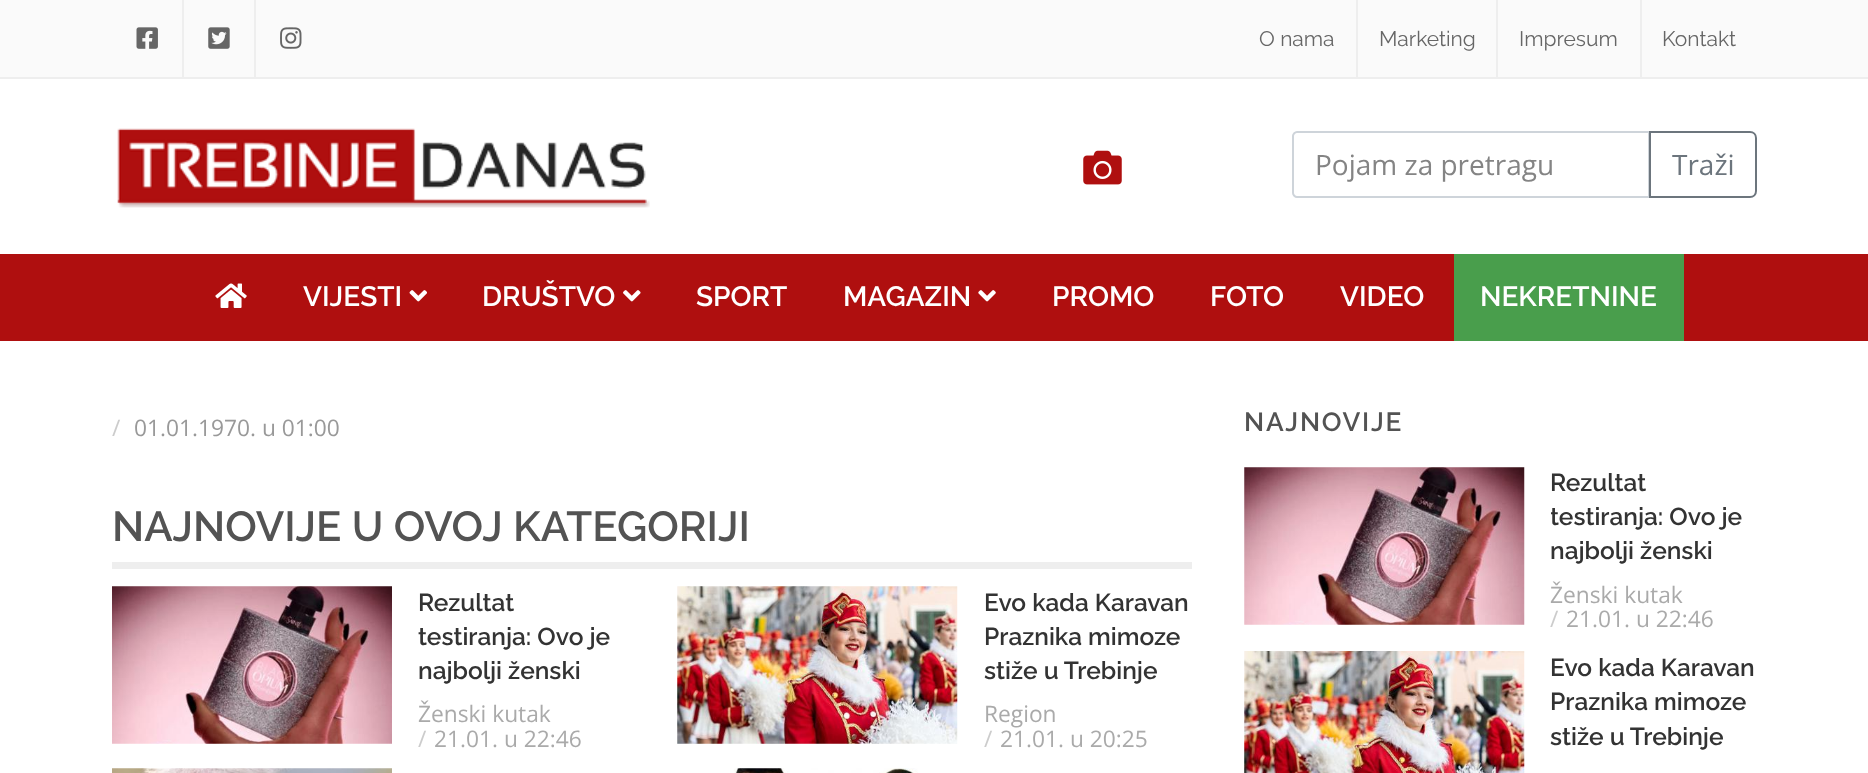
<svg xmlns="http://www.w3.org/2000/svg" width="1868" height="773">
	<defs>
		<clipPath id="clip1"><rect x="1551" y="467" width="206" height="102" /></clipPath>
	</defs>
	<rect width="100%" height="100%" fill="#FFFFFF" />
	<rect x="0" y="0" width="1868" height="77" fill="#FAFAFA" />
	<rect x="0" y="77" width="1868" height="2" fill="#EEEEEE" />
	<image x="136" y="27" width="22" height="22" href="assets/img1.png" />
	<rect x="182" y="0" width="2" height="77" fill="#EEEEEE" />
	<image x="208" y="27" width="22" height="22" href="assets/img2.png" />
	<rect x="254" y="0" width="2" height="77" fill="#EEEEEE" />
	<image x="280" y="27" width="22" height="22" href="assets/img3.png" />
	<text x="1259" y="46" font-family="Raleway" font-size="21" fill="#666666">O nama</text>
	<rect x="1356" y="0" width="2" height="77" fill="#EEEEEE" />
	<text x="1379" y="46" font-family="Raleway" font-size="21" fill="#666666">Marketing</text>
	<rect x="1496" y="0" width="2" height="77" fill="#EEEEEE" />
	<text x="1519" y="46" font-family="Raleway" font-size="21" fill="#666666">Impresum</text>
	<rect x="1640" y="0" width="2" height="77" fill="#EEEEEE" />
	<text x="1662" y="46" font-family="Raleway" font-size="21" fill="#666666">Kontakt</text>
	<image x="117" y="128" width="533" height="80" href="assets/img4.png" />
	<image x="1083" y="150" width="39" height="35" href="assets/img5.png" />
	<path d="M1297 132H1649V197H1297C1295 197 1293 195 1293 193V136C1293 134 1295 132 1297 132Z" fill="none" stroke="#CED4DA" stroke-width="2" />
	<text x="1315" y="175" font-family="Open Sans" font-size="28" fill="#848484">Pojam za pretragu</text>
	<path d="M1650 132H1750C1753.5 132 1756 134.5 1756 138V191C1756 194.5 1753.5 197 1750 197H1650Z" fill="none" stroke="#6C757D" stroke-width="2" />
	<text x="1672" y="175" font-family="Open Sans" font-size="28" fill="#6C757D">Traži</text>
	<rect x="0" y="254" width="1868" height="87" fill="#AF0F0F" />
	<image x="215" y="283" width="32" height="25" href="assets/img6.png" />
	<text x="303" y="306" font-family="Raleway" font-size="28" font-weight="600" fill="#FFFFFF">VIJESTI</text>
	<image x="409" y="290" width="18" height="12" href="assets/img7.png" />
	<text x="482" y="306" font-family="Raleway" font-size="28" font-weight="600" fill="#FFFFFF">DRUŠTVO</text>
	<image x="623" y="290" width="18" height="12" href="assets/img8.png" />
	<g font-family="Raleway" font-size="28" font-weight="600" fill="#FFFFFF">
		<text x="696" y="306">SPORT</text>
		<text x="843" y="306">MAGAZIN</text>
	</g>
	<image x="978" y="290" width="18" height="12" href="assets/img9.png" />
	<g font-family="Raleway" font-size="28" font-weight="600" fill="#FFFFFF">
		<text x="1052" y="306">PROMO</text>
		<text x="1210" y="306">FOTO</text>
		<text x="1340" y="306">VIDEO</text>
	</g>
	<rect x="1454" y="254" width="230" height="87" fill="#499E4C" />
	<text x="1480" y="306" font-family="Raleway" font-size="28" font-weight="600" fill="#FFFFFF">NEKRETNINE</text>
	<text x="112" y="436" font-family="Open Sans" font-size="22.75" fill="#CCCCCC">/</text>
	<text x="134" y="436" font-family="Open Sans" font-size="22.75" fill="#999999">01.01.1970. u 01:00</text>
	<rect x="112" y="562" width="1080" height="7" fill="#EEEEEE" />
	<text x="112" y="541" font-family="Raleway" font-size="42" font-weight="600" fill="#535353">NAJNOVIJE U OVOJ KATEGORIJI</text>
	<image x="112" y="586" width="280" height="158" href="assets/img10.png" />
	<g font-family="Raleway" font-size="24.5" font-weight="600" fill="#333333">
		<text x="418" y="611">Rezultat</text>
		<text x="418" y="645">testiranja: Ovo je</text>
		<text x="418" y="679">najbolji ženski</text>
	</g>
	<text x="418" y="722" font-family="Open Sans" font-size="22.75" fill="#AAAAAA">Ženski kutak</text>
	<text x="418" y="747" font-family="Open Sans" font-size="22.75" fill="#CCCCCC">/</text>
	<text x="434" y="747" font-family="Open Sans" font-size="22.75" fill="#AAAAAA">21.01. u 22:46</text>
	<image x="677" y="586" width="281" height="158" href="assets/img11.png" />
	<g font-family="Raleway" font-size="24.5" font-weight="600" fill="#333333">
		<text x="984" y="611">Evo kada Karavan</text>
		<text x="984" y="645">Praznika mimoze</text>
		<text x="984" y="679">stiže u Trebinje</text>
	</g>
	<text x="984" y="722" font-family="Open Sans" font-size="22.75" fill="#AAAAAA">Region</text>
	<text x="984" y="747" font-family="Open Sans" font-size="22.75" fill="#CCCCCC">/</text>
	<text x="1000" y="747" font-family="Open Sans" font-size="22.75" fill="#AAAAAA">21.01. u 20:25</text>
	<image x="112" y="768" width="280" height="5" href="assets/img12.png" />
	<image x="734" y="768" width="184" height="5" href="assets/img13.png" />
	<text x="1244" y="431" font-family="Raleway" font-size="26.25" font-weight="600" letter-spacing="1.75" fill="#535353">NAJNOVIJE</text>
	<image x="1244" y="467" width="281" height="158" href="assets/img14.png" />
	<text x="1550" y="491" font-family="Raleway" font-size="24.5" font-weight="600" fill="#333333">Rezultat</text>
	<g clip-path="url(#clip1)">
		<text x="1550" y="525" font-family="Raleway" font-size="24.5" font-weight="600" fill="#333333">testiranja: Ovo je</text>
	</g>
	<text x="1550" y="559" font-family="Raleway" font-size="24.5" font-weight="600" fill="#333333">najbolji ženski</text>
	<text x="1550" y="603" font-family="Open Sans" font-size="22.75" fill="#AAAAAA">Ženski kutak</text>
	<text x="1550" y="627" font-family="Open Sans" font-size="22.75" fill="#CCCCCC">/</text>
	<text x="1566" y="627" font-family="Open Sans" font-size="22.75" fill="#AAAAAA">21.01. u 22:46</text>
	<image x="1244" y="651" width="281" height="122" href="assets/img15.png" />
	<g font-family="Raleway" font-size="24.5" font-weight="600" fill="#333333">
		<text x="1550" y="676">Evo kada Karavan</text>
		<text x="1550" y="710">Praznika mimoze</text>
		<text x="1550" y="745">stiže u Trebinje</text>
	</g>
</svg>
